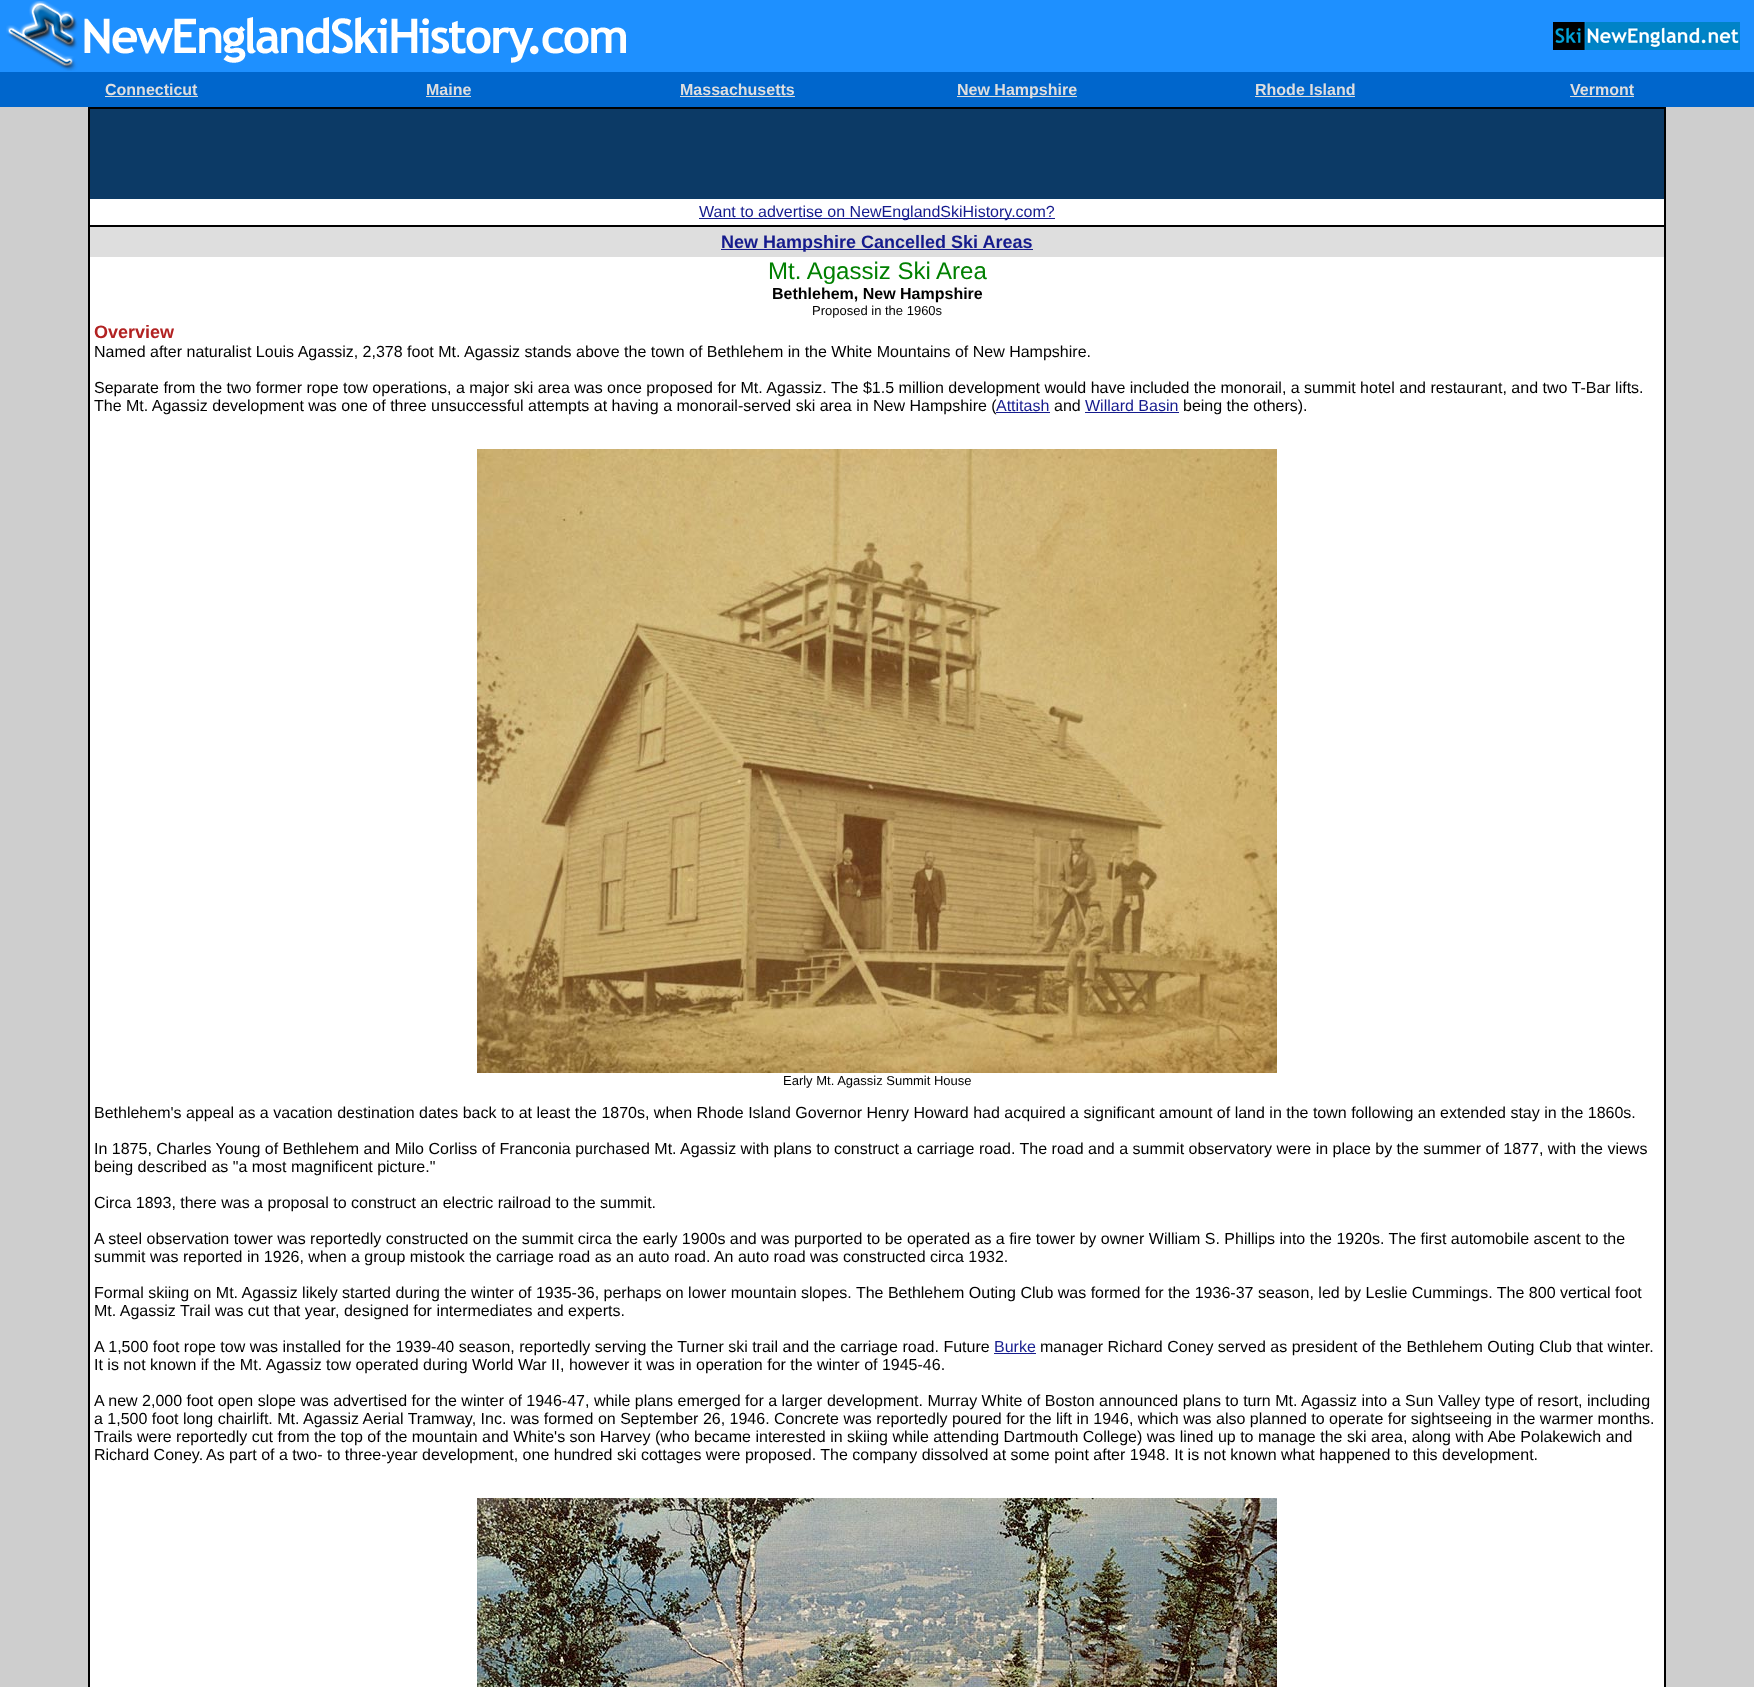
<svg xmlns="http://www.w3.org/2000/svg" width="1754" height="1687">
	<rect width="100%" height="100%" fill="#CECECE" />
	<rect x="0" y="0" width="1754" height="72" fill="#1E90FF" />
	<image x="6" y="1" width="620" height="70" href="assets/img1.png" />
	<image x="1553" y="22" width="187" height="28" href="assets/img2.png" />
	<rect x="0" y="72" width="1754" height="35" fill="#0066CC" />
	<text x="105" y="95" font-family="Liberation Sans" font-size="16" font-weight="700" fill="#DEDEDE">Connecticut</text>
	<rect x="105" y="96" width="93" height="1" fill="#DEDEDE" />
	<text x="426" y="95" font-family="Liberation Sans" font-size="16" font-weight="700" fill="#DEDEDE">Maine</text>
	<rect x="426" y="96" width="45" height="1" fill="#DEDEDE" />
	<text x="680" y="95" font-family="Liberation Sans" font-size="16" font-weight="700" fill="#DEDEDE">Massachusetts</text>
	<rect x="680" y="96" width="115" height="1" fill="#DEDEDE" />
	<rect x="957" y="96" width="120" height="1" fill="#DEDEDE" />
	<g font-family="Liberation Sans" font-size="16" font-weight="700" fill="#DEDEDE">
		<text x="957" y="95">New Hampshire</text>
		<text x="1255" y="95">Rhode Island</text>
	</g>
	<rect x="1255" y="96" width="100" height="1" fill="#DEDEDE" />
	<text x="1570" y="95" font-family="Liberation Sans" font-size="16" font-weight="700" fill="#DEDEDE">Vermont</text>
	<rect x="1570" y="96" width="64" height="1" fill="#DEDEDE" />
	<rect x="88.5" y="107.5" width="1577" height="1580" fill="none" stroke="#000000" />
	<rect x="90" y="109" width="1574" height="90" fill="#0C3A66" />
	<rect x="89.5" y="108.5" width="1575" height="117" fill="none" stroke="#000000" />
	<rect x="90" y="199" width="1574" height="26" fill="#FFFFFF" />
	<rect x="699" y="218" width="356" height="1" fill="#151B8D" />
	<text x="699" y="217" font-family="Liberation Sans" font-size="16" fill="#151B8D">Want to advertise on NewEnglandSkiHistory.com?</text>
	<rect x="90" y="257" width="1574" height="1430" fill="#FFFFFF" />
	<rect x="89.5" y="226.5" width="1575" height="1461" fill="none" stroke="#000000" />
	<rect x="90" y="227" width="1574" height="30" fill="#DEDEDE" />
	<rect x="721" y="249" width="312" height="1" fill="#151B8D" />
	<text x="721" y="248" font-family="Liberation Sans" font-size="18" font-weight="700" fill="#151B8D">New Hampshire Cancelled Ski Areas</text>
	<text x="768" y="279" font-family="Liberation Sans" font-size="24" fill="#008000">Mt. Agassiz Ski Area</text>
	<text x="772" y="299" font-family="Liberation Sans" font-size="16" font-weight="700" fill="#000000">Bethlehem, New Hampshire</text>
	<text x="812" y="315" font-family="Liberation Sans" font-size="13" fill="#000000">Proposed in the 1960s</text>
	<text x="94" y="338" font-family="Liberation Sans" font-size="18" font-weight="700" fill="#B22222">Overview</text>
	<g font-family="Liberation Sans" font-size="16" fill="#000000">
		<text x="94" y="357">Named after naturalist Louis Agassiz, 2,378 foot Mt. Agassiz stands above the town of Bethlehem in the White Mountains of New Hampshire.</text>
		<text x="94" y="393">Separate from the two former rope tow operations, a major ski area was once proposed for Mt. Agassiz. The $1.5 million development would have included the monorail, a summit hotel and restaurant, and two T-Bar lifts.</text>
		<text x="94" y="411">The Mt. Agassiz development was one of three unsuccessful attempts at having a monorail-served ski area in New Hampshire (</text>
	</g>
	<text x="996" y="411" font-family="Liberation Sans" font-size="16" fill="#151B8D">Attitash</text>
	<rect x="996" y="412" width="54" height="1" fill="#151B8D" />
	<text x="1054" y="411" font-family="Liberation Sans" font-size="16" fill="#000000">and</text>
	<text x="1085" y="411" font-family="Liberation Sans" font-size="16" fill="#151B8D">Willard Basin</text>
	<rect x="1085" y="412" width="94" height="1" fill="#151B8D" />
	<text x="1183" y="411" font-family="Liberation Sans" font-size="16" fill="#000000">being the others).</text>
	<image x="477" y="449" width="800" height="624" href="assets/img3.png" />
	<text x="783" y="1085" font-family="Liberation Sans" font-size="13" fill="#000000">Early Mt. Agassiz Summit House</text>
	<g font-family="Liberation Sans" font-size="16" fill="#000000">
		<text x="94" y="1118">Bethlehem's appeal as a vacation destination dates back to at least the 1870s, when Rhode Island Governor Henry Howard had acquired a significant amount of land in the town following an extended stay in the 1860s.</text>
		<text x="94" y="1154">In 1875, Charles Young of Bethlehem and Milo Corliss of Franconia purchased Mt. Agassiz with plans to construct a carriage road. The road and a summit observatory were in place by the summer of 1877, with the views</text>
		<text x="94" y="1172">being described as "a most magnificent picture."</text>
		<text x="94" y="1208">Circa 1893, there was a proposal to construct an electric railroad to the summit.</text>
		<text x="94" y="1244">A steel observation tower was reportedly constructed on the summit circa the early 1900s and was purported to be operated as a fire tower by owner William S. Phillips into the 1920s. The first automobile ascent to the</text>
		<text x="94" y="1262">summit was reported in 1926, when a group mistook the carriage road as an auto road. An auto road was constructed circa 1932.</text>
		<text x="94" y="1298">Formal skiing on Mt. Agassiz likely started during the winter of 1935-36, perhaps on lower mountain slopes. The Bethlehem Outing Club was formed for the 1936-37 season, led by Leslie Cummings. The 800 vertical foot</text>
		<text x="94" y="1316">Mt. Agassiz Trail was cut that year, designed for intermediates and experts.</text>
		<text x="94" y="1352">A 1,500 foot rope tow was installed for the 1939-40 season, reportedly serving the Turner ski trail and the carriage road. Future</text>
	</g>
	<text x="994" y="1352" font-family="Liberation Sans" font-size="16" fill="#151B8D">Burke</text>
	<rect x="994" y="1353" width="42" height="1" fill="#151B8D" />
	<g font-family="Liberation Sans" font-size="16" fill="#000000">
		<text x="1040" y="1352">manager Richard Coney served as president of the Bethlehem Outing Club that winter.</text>
		<text x="94" y="1370">It is not known if the Mt. Agassiz tow operated during World War II, however it was in operation for the winter of 1945-46.</text>
		<text x="94" y="1406">A new 2,000 foot open slope was advertised for the winter of 1946-47, while plans emerged for a larger development. Murray White of Boston announced plans to turn Mt. Agassiz into a Sun Valley type of resort, including</text>
		<text x="94" y="1424">a 1,500 foot long chairlift. Mt. Agassiz Aerial Tramway, Inc. was formed on September 26, 1946. Concrete was reportedly poured for the lift in 1946, which was also planned to operate for sightseeing in the warmer months.</text>
		<text x="94" y="1442">Trails were reportedly cut from the top of the mountain and White's son Harvey (who became interested in skiing while attending Dartmouth College) was lined up to manage the ski area, along with Abe Polakewich and</text>
		<text x="94" y="1460">Richard Coney.</text>
		<text x="206" y="1460">As part of a two- to three-year development, one hundred ski cottages were proposed. The company dissolved at some point after 1948. It is not known what happened to this development.</text>
	</g>
	<image x="477" y="1498" width="800" height="189" href="assets/img4.png" />
</svg>
